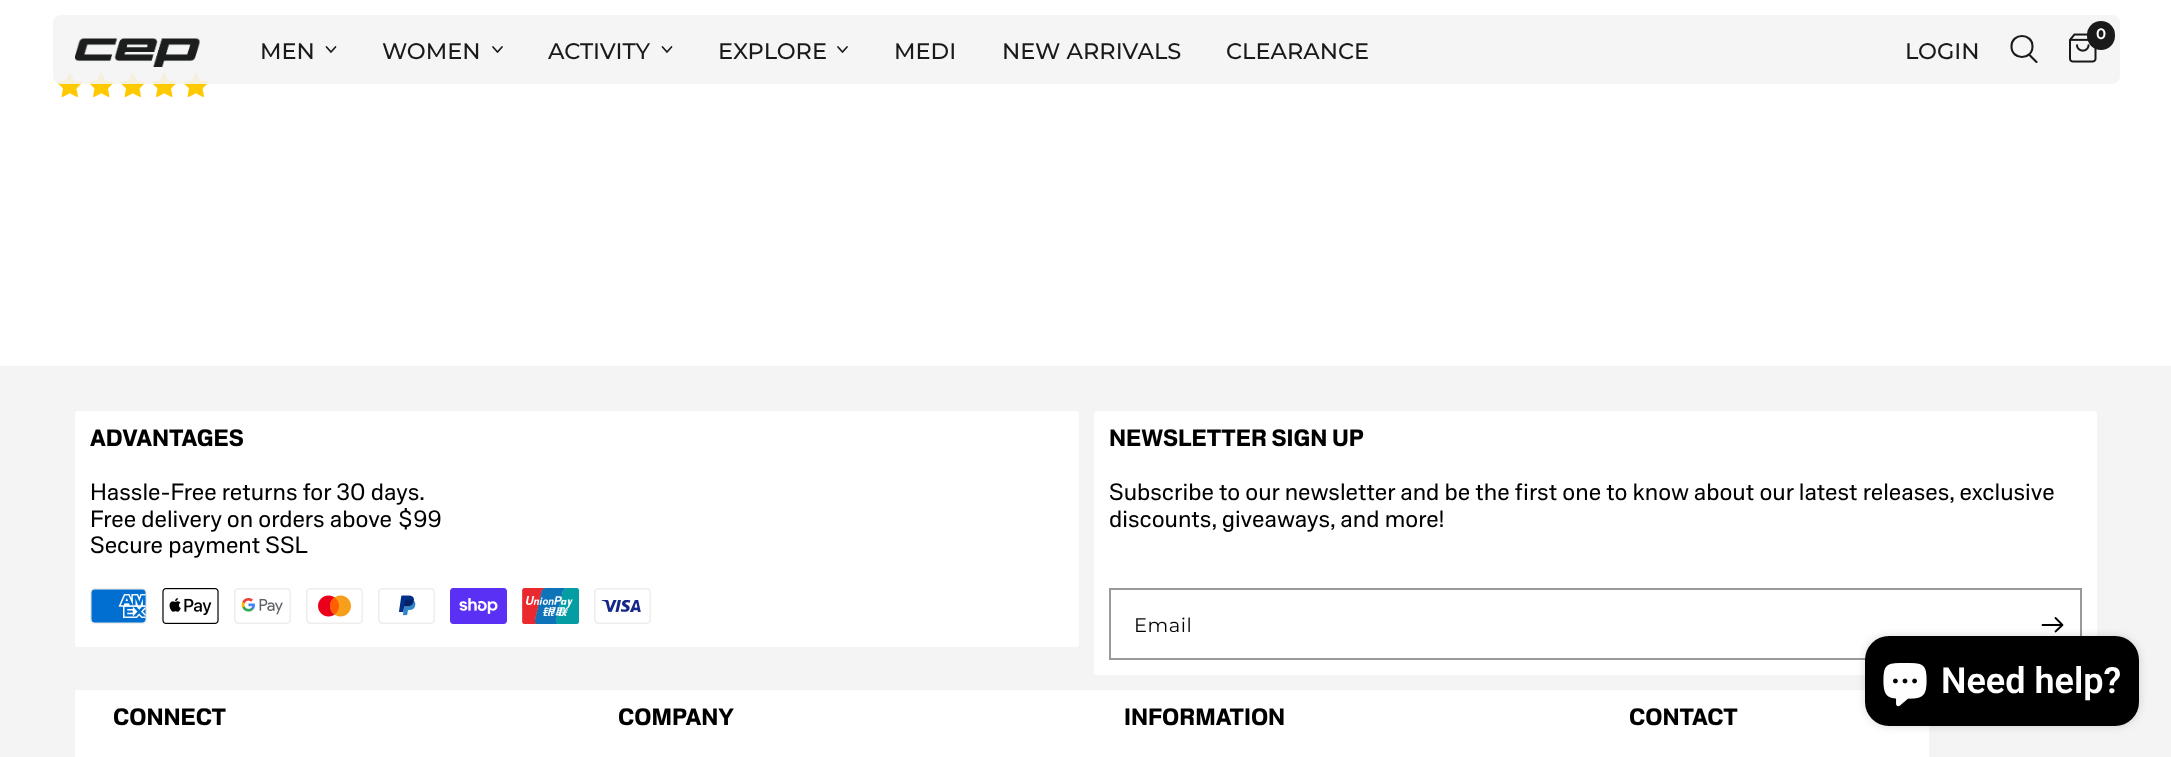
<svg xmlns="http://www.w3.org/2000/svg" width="2171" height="757">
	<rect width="100%" height="100%" fill="#FFFFFF" />
	<image x="57" y="72" width="26" height="25" href="assets/img3.png" />
	<image x="88" y="72" width="26" height="25" href="assets/img4.png" />
	<image x="120" y="72" width="26" height="25" href="assets/img3.png" />
	<image x="151" y="72" width="26" height="25" href="assets/img4.png" />
	<image x="183" y="72" width="26" height="25" href="assets/img3.png" />
	<rect x="53" y="15" width="2067" height="69" rx="8" fill="#F4F4F4" fill-opacity="0.9" />
	<image x="75" y="38" width="125" height="29" href="assets/img1.png" />
	<text x="260" y="59" font-family="Montserrat" font-size="22.5" font-weight="500" fill="#1A1A1A">MEN</text>
	<path d="M335.5 47L331 52L326.5 47" fill="none" stroke="#1A1A1A" stroke-width="1.7" stroke-linecap="round" stroke-linejoin="round" />
	<text x="382" y="59" font-family="Montserrat" font-size="22.5" font-weight="500" fill="#1A1A1A">WOMEN</text>
	<path d="M502 47L497.5 52L493 47" fill="none" stroke="#000000" stroke-opacity="0.9" stroke-width="1.7" stroke-linecap="round" stroke-linejoin="round" />
	<text x="548" y="59" font-family="Montserrat" font-size="22.5" font-weight="500" fill="#1A1A1A">ACTIVITY</text>
	<path d="M671.5 47L667 52L662.5 47" fill="none" stroke="#1A1A1A" stroke-width="1.7" stroke-linecap="round" stroke-linejoin="round" />
	<text x="718" y="59" font-family="Montserrat" font-size="22.5" font-weight="500" fill="#1A1A1A">EXPLORE</text>
	<path d="M847 47L842.5 52L838 47" fill="none" stroke="#1A1A1A" stroke-width="1.7" stroke-linecap="round" stroke-linejoin="round" />
	<g font-family="Montserrat" font-size="22.5" font-weight="500" fill="#1A1A1A">
		<text x="894" y="59">MEDI</text>
		<text x="1002" y="59">NEW ARRIVALS</text>
		<text x="1226" y="59">CLEARANCE</text>
		<text x="1905" y="59">LOGIN</text>
	</g>
	<path d="M2029.5 55L2036.5 62M2032.5 46.5C2032.5 60.5 2011.5 60.5 2011.5 46.5C2011.5 32.5 2032.5 32.5 2032.5 46.5Z" fill="none" stroke="#1A1A1A" stroke-width="2.1" stroke-linecap="round" stroke-linejoin="round" />
	<image x="2069" y="33" width="28" height="30" href="assets/img2.png" />
	<rect x="2087" y="21" width="28" height="29" rx="14" fill="#1A1A1A" />
	<text x="2096" y="39" font-family="Montserrat" font-size="15" font-weight="600" fill="#FFFFFF">0</text>
	<rect x="0" y="366" width="2171" height="391" fill="#F4F4F4" />
	<rect x="75" y="411" width="1004" height="236" rx="3" fill="#FFFFFF" />
	<text x="90" y="446" font-family="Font" font-size="24" font-weight="700" fill="#000000">ADVANTAGES</text>
	<g font-family="Font" font-size="24" fill="#000000">
		<text x="90" y="500">Hassle-Free returns for 30 days.</text>
		<text x="90" y="527">Free delivery on orders above $99</text>
		<text x="90" y="553">Secure payment SSL</text>
	</g>
	<image x="90" y="588" width="57" height="36" href="assets/img5.png" />
	<image x="162" y="588" width="57" height="36" href="assets/img6.png" />
	<image x="234" y="588" width="57" height="36" href="assets/img7.png" />
	<image x="306" y="588" width="57" height="36" href="assets/img8.png" />
	<image x="378" y="588" width="57" height="36" href="assets/img9.png" />
	<image x="450" y="588" width="57" height="36" href="assets/img10.png" />
	<image x="522" y="588" width="57" height="36" href="assets/img11.png" />
	<image x="594" y="588" width="57" height="36" href="assets/img12.png" />
	<rect x="1094" y="411" width="1003" height="264" rx="3" fill="#FFFFFF" />
	<text x="1109" y="446" font-family="Font" font-size="24" font-weight="700" fill="#000000">NEWSLETTER SIGN UP</text>
	<g font-family="Font" font-size="24" fill="#000000">
		<text x="1109" y="500">Subscribe to our newsletter and be the first one to know about our latest releases, exclusive</text>
		<text x="1109" y="527">discounts, giveaways, and more!</text>
	</g>
	<rect x="1110" y="589" width="971" height="70" fill="none" stroke="#999999" stroke-width="2" />
	<text x="1134" y="632" font-family="Montserrat" font-size="19.5" letter-spacing="0.5" fill="#000000">Email</text>
	<path d="M2042.5 625H2060.5M2055.5 618L2062.5 625L2055.5 631.5" fill="none" stroke="#000000" stroke-width="1.8" stroke-linecap="round" stroke-linejoin="round" />
	<rect x="75" y="690" width="1854" height="67" fill="#FFFFFF" />
	<g font-family="Font" font-size="24" font-weight="700" fill="#000000">
		<text x="113" y="725">CONNECT</text>
		<text x="618" y="725">COMPANY</text>
		<text x="1124" y="725">INFORMATION</text>
		<text x="1629" y="725">CONTACT</text>
	</g>
	<rect x="1865" y="636" width="274" height="90" rx="24" fill="#000000" fill-opacity="0.15" filter="blur(4px)" />
	<rect x="1865" y="636" width="274" height="90" rx="24" fill="#000000" />
	<image x="1883" y="663" width="44" height="44" href="assets/img13.png" />
	<text x="1941" y="693" font-family="Roboto" font-size="36" font-weight="600" fill="#FFFFFF">Need help?</text>
</svg>
